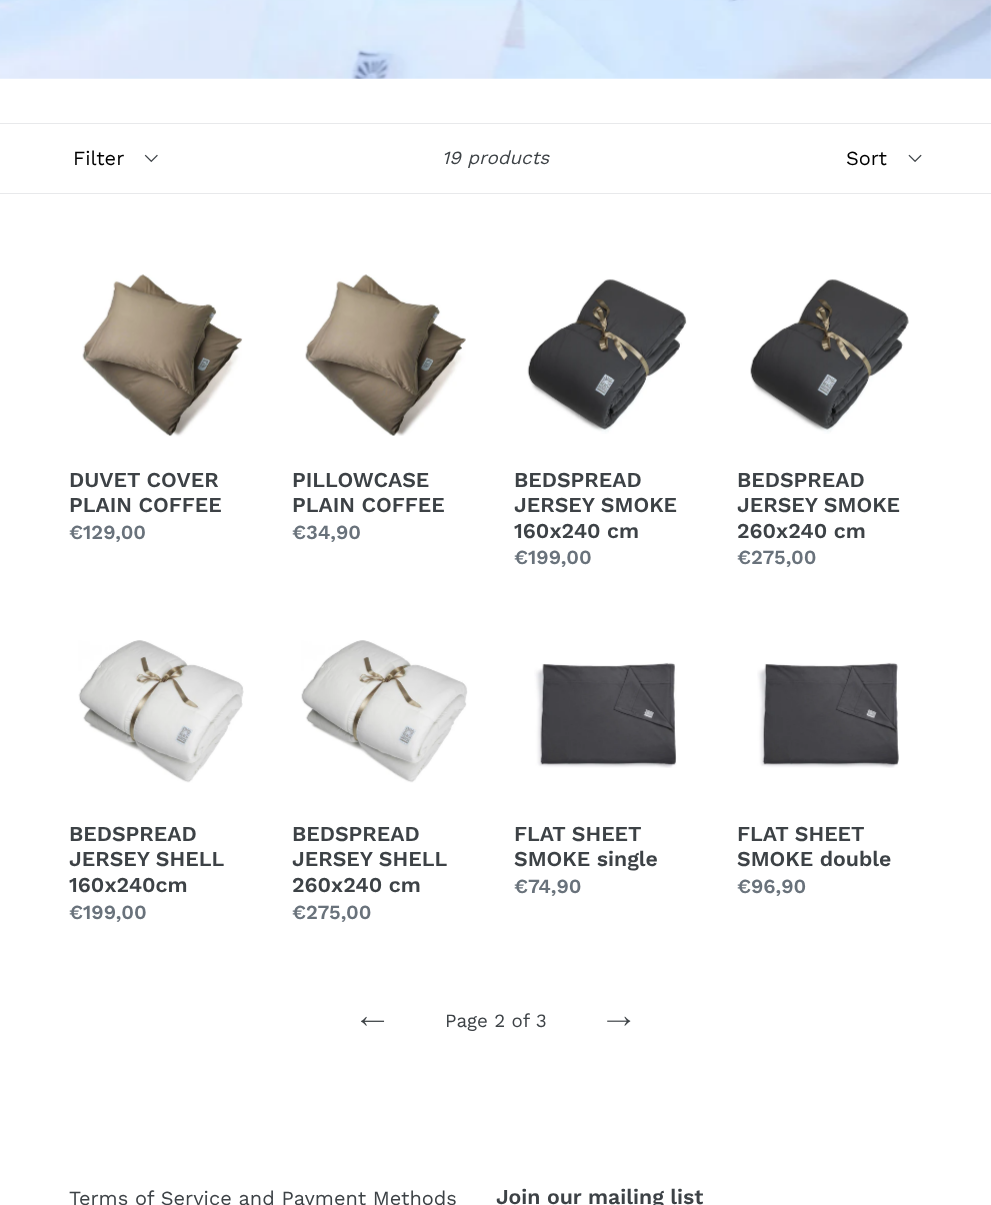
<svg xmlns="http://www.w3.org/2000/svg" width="991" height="1205">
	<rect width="100%" height="100%" fill="#FFFFFF" />
	<image x="0" y="0" width="991" height="79" href="assets/img1.png" />
	<rect x="0" y="123" width="991" height="1" fill="#E8E9EB" />
	<rect x="0" y="193" width="991" height="1" fill="#E8E9EB" />
	<image x="144" y="154" width="14" height="9" href="assets/img2.png" />
	<text x="73" y="165" font-family="Work Sans" font-size="20" fill="#000000">Filter</text>
	<text x="442" y="164" font-family="Work Sans" font-size="18.75" font-style="italic" fill="#3D4246">19 products</text>
	<image x="908" y="154" width="14" height="8" href="assets/img3.png" />
	<text x="846" y="165" font-family="Work Sans" font-size="20" fill="#000000">Sort</text>
	<image x="82" y="274" width="161" height="163" href="assets/img4.png" />
	<g font-family="Work Sans" font-size="21.25" font-weight="600" fill="#3D4246">
		<text x="69" y="487">DUVET COVER</text>
		<text x="69" y="512">PLAIN COFFEE</text>
	</g>
	<text x="69" y="539" font-family="Work Sans" font-size="20" font-weight="600" fill="#69727B">€129,00</text>
	<image x="305" y="274" width="161" height="162" href="assets/img5.png" />
	<g font-family="Work Sans" font-size="21.25" font-weight="600" fill="#3D4246">
		<text x="292" y="487">PILLOWCASE</text>
		<text x="292" y="512">PLAIN COFFEE</text>
	</g>
	<text x="292" y="539" font-family="Work Sans" font-size="20" font-weight="600" fill="#69727B">€34,90</text>
	<image x="527" y="279" width="160" height="155" href="assets/img6.png" />
	<g font-family="Work Sans" font-size="21.25" font-weight="600" fill="#3D4246">
		<text x="514" y="487">BEDSPREAD</text>
		<text x="514" y="512">JERSEY SMOKE</text>
		<text x="514" y="538">160x240 cm</text>
	</g>
	<text x="514" y="564" font-family="Work Sans" font-size="20" font-weight="600" fill="#69727B">€199,00</text>
	<image x="750" y="279" width="159" height="155" href="assets/img7.png" />
	<g font-family="Work Sans" font-size="21.25" font-weight="600" fill="#3D4246">
		<text x="737" y="487">BEDSPREAD</text>
		<text x="737" y="512">JERSEY SMOKE</text>
		<text x="737" y="538">260x240 cm</text>
	</g>
	<text x="737" y="564" font-family="Work Sans" font-size="20" font-weight="600" fill="#69727B">€275,00</text>
	<image x="78" y="640" width="166" height="143" href="assets/img8.png" />
	<g font-family="Work Sans" font-size="21.25" font-weight="600" fill="#3D4246">
		<text x="69" y="841">BEDSPREAD</text>
		<text x="69" y="866">JERSEY SHELL</text>
		<text x="69" y="892">160x240cm</text>
	</g>
	<text x="69" y="919" font-family="Work Sans" font-size="20" font-weight="600" fill="#69727B">€199,00</text>
	<image x="301" y="640" width="167" height="143" href="assets/img9.png" />
	<g font-family="Work Sans" font-size="21.25" font-weight="600" fill="#3D4246">
		<text x="292" y="841">BEDSPREAD</text>
		<text x="292" y="866">JERSEY SHELL</text>
		<text x="292" y="892">260x240 cm</text>
	</g>
	<text x="292" y="919" font-family="Work Sans" font-size="20" font-weight="600" fill="#69727B">€275,00</text>
	<image x="534" y="662" width="143" height="106" href="assets/img10.png" />
	<g font-family="Work Sans" font-size="21.25" font-weight="600" fill="#3D4246">
		<text x="514" y="841">FLAT SHEET</text>
		<text x="514" y="866">SMOKE single</text>
	</g>
	<text x="514" y="893" font-family="Work Sans" font-size="20" font-weight="600" fill="#69727B">€74,90</text>
	<image x="757" y="662" width="142" height="106" href="assets/img11.png" />
	<g font-family="Work Sans" font-size="21.25" font-weight="600" fill="#3D4246">
		<text x="737" y="841">FLAT SHEET</text>
		<text x="737" y="866">SMOKE double</text>
	</g>
	<text x="737" y="893" font-family="Work Sans" font-size="20" font-weight="600" fill="#69727B">€96,90</text>
	<image x="361" y="1016" width="24" height="10" href="assets/img12.png" />
	<text x="445" y="1027" font-family="Work Sans" font-size="18.75" fill="#3D4246">Page 2 of 3</text>
	<image x="607" y="1016" width="24" height="10" href="assets/img13.png" />
	<text x="69" y="1205" font-family="Work Sans" font-size="20" fill="#3D4246">Terms of Service and Payment Methods</text>
	<text x="496" y="1204" font-family="Work Sans" font-size="21.25" font-weight="600" fill="#3D4246">Join our mailing list</text>
</svg>
